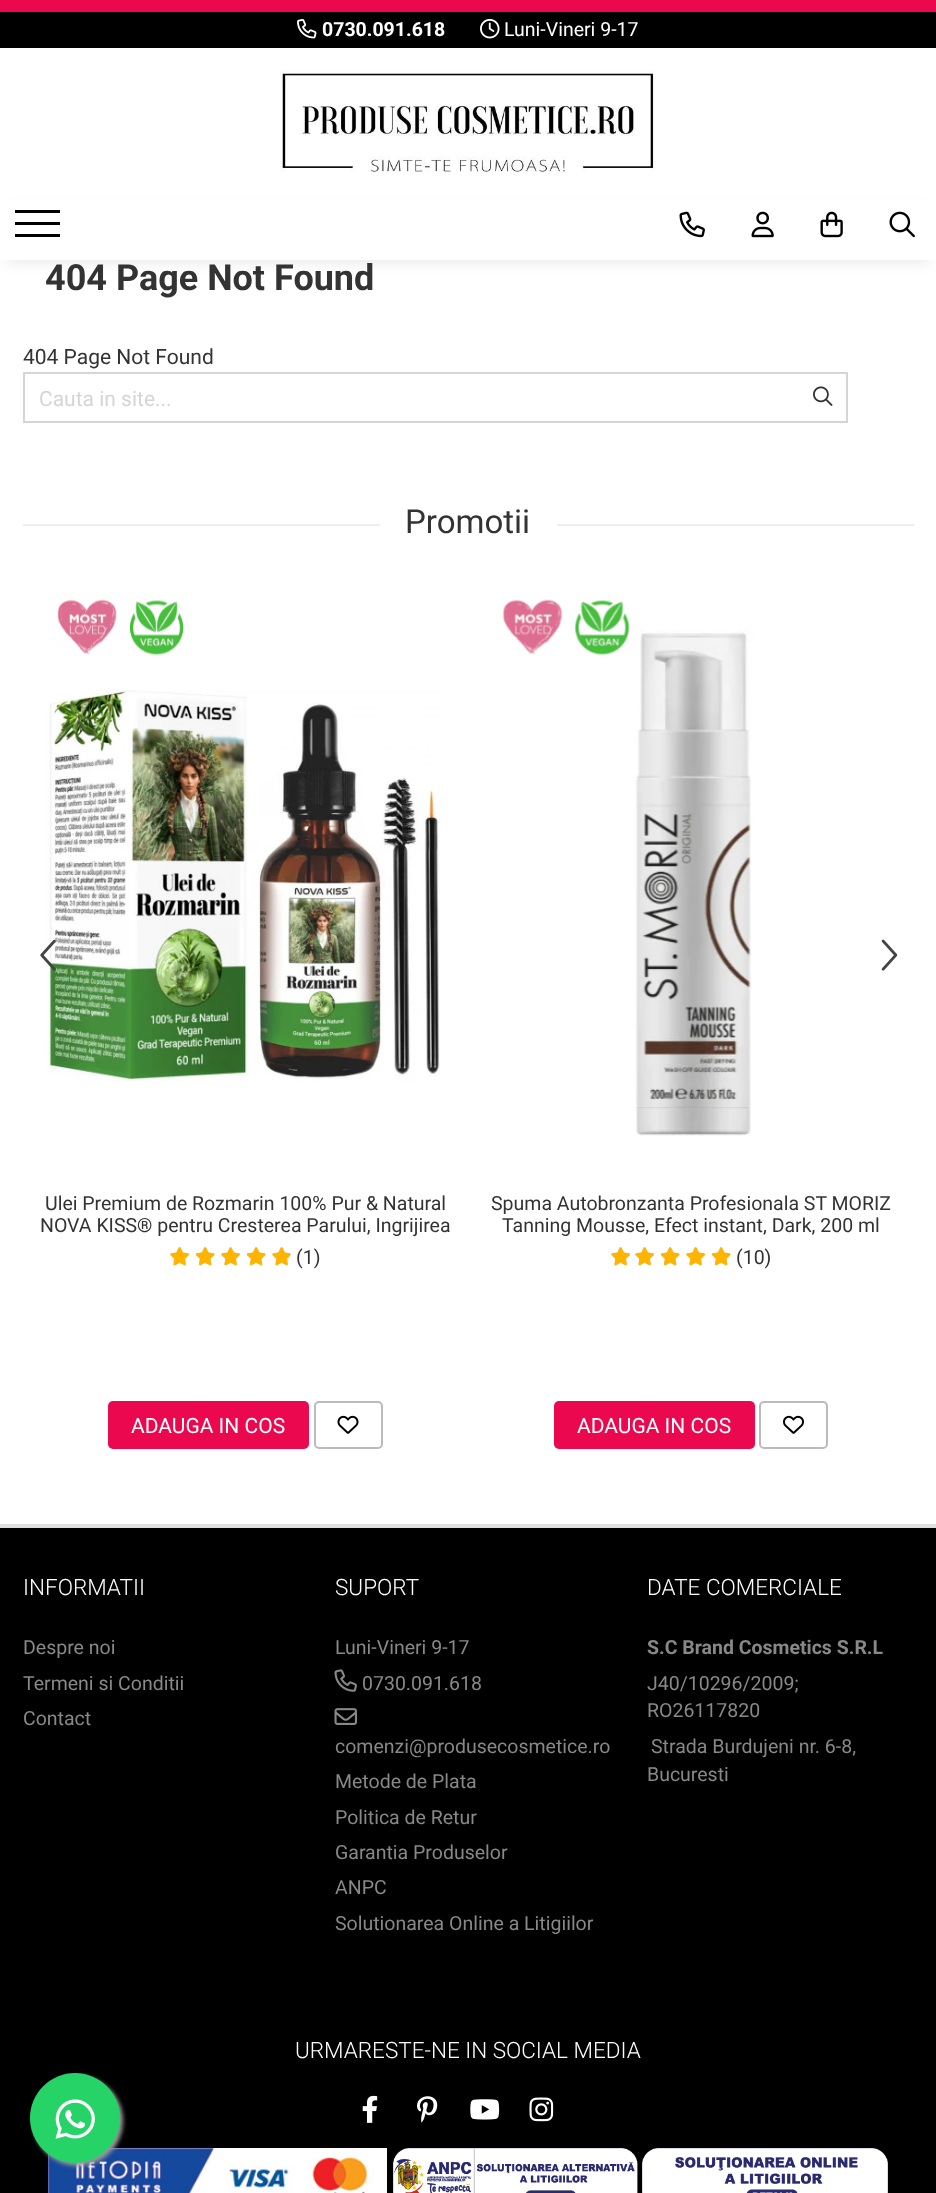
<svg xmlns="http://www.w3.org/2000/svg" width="936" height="2193">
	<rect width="100%" height="100%" fill="#FFFFFF" />
	<rect x="0" y="0" width="936" height="12" fill="#EC084E" />
	<rect x="0" y="12" width="936" height="36" fill="#000000" />
	<image x="297" y="18" width="20" height="21" href="assets/img1.png" />
	<text x="322" y="36" font-family="Roboto" font-size="19.5" font-weight="700" fill="#FFFFFF">0730.091.618</text>
	<image x="480" y="18" width="20" height="21" href="assets/img2.png" />
	<text x="504" y="36" font-family="Roboto" font-size="19.5" fill="#FFFFFF">Luni-Vineri 9-17</text>
	<image x="280" y="70" width="376" height="103" href="assets/img3.png" />
	<rect x="8" y="210" width="921" height="50" fill="#000000" fill-opacity="0.12" filter="blur(7.5px)" />
	<rect x="0" y="200" width="936" height="60" fill="#FFFFFF" />
	<rect x="15" y="222" width="45" height="3" fill="#000000" />
	<rect x="15" y="210" width="45" height="3" fill="#000000" />
	<rect x="15" y="234" width="45" height="3" fill="#000000" />
	<image x="679" y="211" width="26" height="27" href="assets/img4.png" />
	<image x="751" y="211" width="23" height="27" href="assets/img5.png" />
	<image x="820" y="211" width="23" height="27" href="assets/img6.png" />
	<image x="889" y="211" width="26" height="27" href="assets/img7.png" />
	<text x="45" y="290" font-family="Roboto" font-size="36" font-weight="700" fill="#333333">404 Page Not Found</text>
	<text x="23" y="364" font-family="Roboto" font-size="21" fill="#333333">404 Page Not Found</text>
	<rect x="24" y="373" width="823" height="49" fill="none" stroke="#D5D5D5" stroke-width="2" />
	<text x="39" y="406" font-family="Roboto" font-size="21" fill="#D5D5D5">Cauta in site...</text>
	<image x="813" y="386" width="20" height="20" href="assets/img8.png" />
	<rect x="23" y="524" width="891" height="2" fill="#EEEEEE" />
	<rect x="380" y="524" width="177" height="2" fill="#FFFFFF" />
	<text x="405" y="533" font-family="Roboto" font-size="33" fill="#333333">Promotii</text>
	<image x="46" y="690" width="394" height="393" href="assets/img11.png" />
	<image x="40" y="939" width="16" height="32" href="assets/img9.png" />
	<image x="881" y="939" width="17" height="32" href="assets/img10.png" />
	<image x="57" y="599" width="60" height="56" href="assets/img12.png" />
	<image x="129" y="600" width="55" height="55" href="assets/img13.png" />
	<g font-family="Roboto" font-size="19.5" fill="#333333">
		<text x="45" y="1210">Ulei Premium de Rozmarin 100% Pur &amp; Natural</text>
		<text x="40" y="1232">NOVA KISS® pentru Cresterea Parului, Ingrijirea</text>
	</g>
	<image x="170" y="1247" width="19" height="19" href="assets/img14.png" />
	<image x="170" y="1247" width="19" height="19" href="assets/img15.png" />
	<image x="195" y="1247" width="20" height="19" href="assets/img18.png" />
	<image x="195" y="1247" width="20" height="19" href="assets/img16.png" />
	<image x="221" y="1247" width="19" height="19" href="assets/img14.png" />
	<image x="221" y="1247" width="19" height="19" href="assets/img15.png" />
	<image x="246" y="1247" width="20" height="19" href="assets/img18.png" />
	<image x="246" y="1247" width="20" height="19" href="assets/img16.png" />
	<image x="272" y="1247" width="19" height="19" href="assets/img14.png" />
	<image x="272" y="1247" width="18" height="19" href="assets/img17.png" />
	<text x="296" y="1264" font-family="Roboto" font-size="19.5" fill="#333333">(1)</text>
	<rect x="108" y="1401" width="201" height="48" rx="5" fill="#EC084E" />
	<text x="131" y="1433" font-family="Roboto" font-size="21" fill="#FFFFFF">ADAUGA IN COS</text>
	<rect x="315" y="1402" width="67" height="46" rx="4" fill="none" stroke="#BBBBBB" stroke-width="2" />
	<image x="337" y="1415" width="22" height="19" href="assets/img19.png" />
	<image x="635" y="630" width="118" height="506" href="assets/img20.png" />
	<image x="503" y="599" width="60" height="56" href="assets/img21.png" />
	<image x="574" y="600" width="56" height="55" href="assets/img22.png" />
	<g font-family="Roboto" font-size="19.5" fill="#333333">
		<text x="491" y="1210">Spuma Autobronzanta Profesionala ST MORIZ</text>
		<text x="502" y="1232">Tanning Mousse, Efect instant, Dark, 200 ml</text>
	</g>
	<image x="611" y="1247" width="19" height="19" href="assets/img14.png" />
	<image x="611" y="1247" width="19" height="19" href="assets/img15.png" />
	<image x="635" y="1247" width="19" height="19" href="assets/img14.png" />
	<image x="635" y="1247" width="19" height="19" href="assets/img15.png" />
	<image x="660" y="1247" width="20" height="19" href="assets/img18.png" />
	<image x="660" y="1247" width="20" height="19" href="assets/img16.png" />
	<image x="686" y="1247" width="19" height="19" href="assets/img14.png" />
	<image x="686" y="1247" width="19" height="19" href="assets/img15.png" />
	<image x="711" y="1247" width="20" height="19" href="assets/img18.png" />
	<image x="711" y="1247" width="20" height="19" href="assets/img16.png" />
	<text x="736" y="1264" font-family="Roboto" font-size="19.5" fill="#333333">(10)</text>
	<rect x="554" y="1401" width="201" height="48" rx="5" fill="#EC084E" />
	<text x="577" y="1433" font-family="Roboto" font-size="21" fill="#FFFFFF">ADAUGA IN COS</text>
	<rect x="760" y="1402" width="67" height="46" rx="4" fill="none" stroke="#BBBBBB" stroke-width="2" />
	<image x="783" y="1415" width="21" height="19" href="assets/img23.png" />
	<rect x="0" y="1524" width="936" height="4" fill="#DFDFDF" />
	<rect x="0" y="1528" width="936" height="665" fill="#000000" />
	<text x="23" y="1595" font-family="Roboto" font-size="22.5" font-weight="300" fill="#FFFFFF">INFORMATII</text>
	<g font-family="Roboto" font-size="19.5" fill="#888888">
		<text x="23" y="1654">Despre noi</text>
		<text x="23" y="1690">Termeni si Conditii</text>
		<text x="23" y="1725">Contact</text>
	</g>
	<text x="335" y="1595" font-family="Roboto" font-size="22.5" font-weight="300" fill="#FFFFFF">SUPORT</text>
	<text x="335" y="1654" font-family="Roboto" font-size="19.5" fill="#888888">Luni-Vineri 9-17</text>
	<image x="334" y="1669" width="23" height="23" href="assets/img24.png" />
	<text x="362" y="1690" font-family="Roboto" font-size="19.5" fill="#888888">0730.091.618</text>
	<image x="334" y="1708" width="23" height="17" href="assets/img25.png" />
	<g font-family="Roboto" font-size="19.5" fill="#888888">
		<text x="335" y="1753">comenzi@produsecosmetice.ro</text>
		<text x="335" y="1788">Metode de Plata</text>
		<text x="335" y="1824">Politica de Retur</text>
		<text x="335" y="1859">Garantia Produselor</text>
		<text x="335" y="1894">ANPC</text>
		<text x="335" y="1930">Solutionarea Online a Litigiilor</text>
	</g>
	<text x="647" y="1595" font-family="Roboto" font-size="22.5" font-weight="300" fill="#FFFFFF">DATE COMERCIALE</text>
	<text x="647" y="1654" font-family="Roboto" font-size="19.5" font-weight="700" fill="#888888">S.C Brand Cosmetics S.R.L</text>
	<g font-family="Roboto" font-size="19.5" fill="#888888">
		<text x="647" y="1690">J40/10296/2009;</text>
		<text x="647" y="1717">RO26117820</text>
		<text x="651" y="1753">Strada Burdujeni nr. 6-8,</text>
		<text x="647" y="1781">Bucuresti</text>
	</g>
	<text x="295" y="2058" font-family="Roboto" font-size="22.5" font-weight="300" fill="#FFFFFF">URMARESTE-NE IN SOCIAL MEDIA</text>
	<image x="362" y="2095" width="16" height="28" href="assets/img26.png" />
	<image x="417" y="2096" width="21" height="27" href="assets/img27.png" />
	<image x="470" y="2099" width="30" height="21" href="assets/img28.png" />
	<image x="529" y="2097" width="25" height="25" href="assets/img29.png" />
	<image x="48" y="2148" width="339" height="45" href="assets/img30.png" />
	<image x="393" y="2148" width="245" height="45" href="assets/img31.png" />
	<image x="642" y="2148" width="246" height="45" href="assets/img32.png" />
	<rect x="33" y="2076" width="90" height="90" rx="45" fill="#999999" filter="blur(2px)" />
	<circle cx="75" cy="2118" r="45" fill="#25D366" />
	<image x="55" y="2099" width="40" height="40" href="assets/img33.png" />
</svg>
